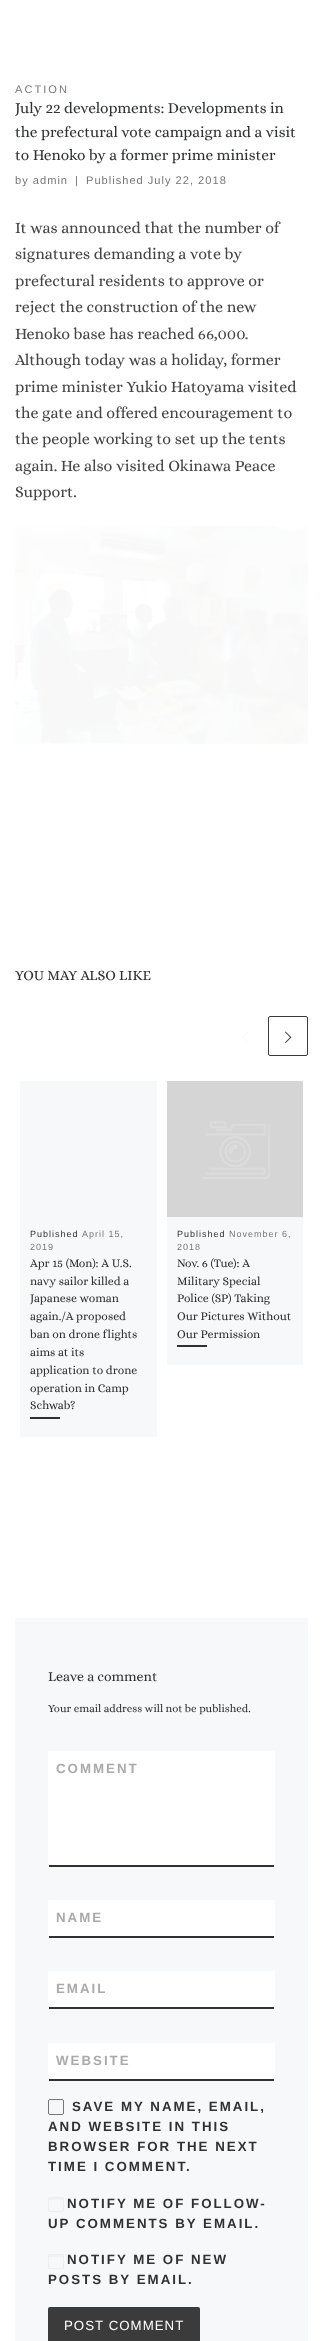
<svg xmlns="http://www.w3.org/2000/svg" width="323" height="2341">
	<rect width="100%" height="100%" fill="#FFFFFF" />
	<text x="15" y="93" font-family="Liberation Sans" font-size="11.1" letter-spacing="2" fill="#777777">ACTION</text>
	<g font-family="Alice" font-size="15.4" fill="#303133">
		<text x="15" y="113">July 22 developments: Developments in</text>
		<text x="15" y="137">the prefectural vote campaign and a visit</text>
		<text x="15" y="160">to Henoko by a former prime minister</text>
	</g>
	<g font-family="Liberation Sans" font-size="11.1" letter-spacing="1" fill="#777777">
		<text x="15" y="184">by admin</text>
		<text x="75" y="184">|</text>
		<text x="86" y="184">Published July 22, 2018</text>
	</g>
	<g font-family="Alice" font-size="16" fill="#444444">
		<text x="15" y="233">It was announced that the number of</text>
		<text x="15" y="259">signatures demanding a vote by</text>
		<text x="15" y="286">prefectural residents to approve or</text>
		<text x="15" y="312">reject the construction of the new</text>
		<text x="15" y="339">Henoko base has reached 66,000.</text>
		<text x="15" y="365">Although today was a holiday, former</text>
		<text x="15" y="392">prime minister Yukio Hatoyama visited</text>
		<text x="15" y="418">the gate and offered encouragement to</text>
		<text x="15" y="444">the people working to set up the tents</text>
		<text x="15" y="471">again. He also visited Okinawa Peace</text>
		<text x="15" y="497">Support.</text>
	</g>
	<image x="15" y="526" width="293" height="218" href="assets/img1.png" />
	<text x="15" y="980" font-family="Alice" font-size="14.4" fill="#303133">YOU MAY ALSO LIKE</text>
	<image x="242" y="1032" width="6" height="11" href="assets/img2.png" />
	<rect x="268.5" y="1016.5" width="39" height="39" rx="1.5" fill="none" stroke="#3B3B3B" />
	<image x="285" y="1031" width="7" height="12" href="assets/img3.png" />
	<rect x="20" y="1081" width="137" height="356" fill="#F7F8F9" />
	<text x="30" y="1237" font-family="Liberation Sans" font-size="9" letter-spacing="1" fill="#303133">Published</text>
	<g font-family="Liberation Sans" font-size="9" letter-spacing="1" fill="#777777">
		<text x="82" y="1237">April 15,</text>
		<text x="30" y="1250">2019</text>
	</g>
	<g font-family="Alice" font-size="11.9" fill="#303133">
		<text x="30" y="1267">Apr 15 (Mon): A U.S.</text>
		<text x="30" y="1285">navy sailor killed a</text>
		<text x="30" y="1302">Japanese woman</text>
		<text x="30" y="1320">again./A proposed</text>
		<text x="30" y="1338">ban on drone flights</text>
		<text x="30" y="1356">aims at its</text>
		<text x="30" y="1374">application to drone</text>
		<text x="30" y="1392">operation in Camp</text>
		<text x="30" y="1409">Schwab?</text>
	</g>
	<rect x="30" y="1417" width="30" height="2" fill="#313131" />
	<rect x="167" y="1217" width="136" height="148" fill="#F7F8F9" />
	<rect x="167" y="1081" width="136" height="136" fill="#D5D5D5" />
	<image x="202" y="1121" width="68" height="58" href="assets/img4.png" />
	<text x="177" y="1237" font-family="Liberation Sans" font-size="9" letter-spacing="1" fill="#303133">Published</text>
	<g font-family="Liberation Sans" font-size="9" letter-spacing="1" fill="#777777">
		<text x="229" y="1237">November 6,</text>
		<text x="177" y="1250">2018</text>
	</g>
	<g font-family="Alice" font-size="11.9" fill="#303133">
		<text x="177" y="1267">Nov. 6 (Tue): A</text>
		<text x="177" y="1285">Military Special</text>
		<text x="177" y="1302">Police (SP) Taking</text>
		<text x="177" y="1320">Our Pictures Without</text>
		<text x="177" y="1338">Our Permission</text>
	</g>
	<rect x="177" y="1345" width="30" height="2" fill="#313131" />
	<rect x="15" y="1618" width="293" height="723" fill="#F7F8F9" />
	<text x="48" y="1681" font-family="Alice" font-size="14" fill="#303133">Leave a comment</text>
	<text x="48" y="1712" font-family="Alice" font-size="11.1" fill="#303133">Your email address will not be published.</text>
	<rect x="48" y="1751" width="227" height="116" rx="2" fill="#FFFFFF" />
	<rect x="49" y="1865" width="225" height="2" fill="#313131" />
	<text x="56" y="1773" font-family="Liberation Sans" font-size="13.3" font-weight="700" letter-spacing="2" fill="#AAAAAA">COMMENT</text>
	<rect x="48" y="1900" width="227" height="38" rx="2" fill="#FFFFFF" />
	<rect x="49" y="1936" width="225" height="2" fill="#313131" />
	<text x="56" y="1922" font-family="Liberation Sans" font-size="13.3" font-weight="700" letter-spacing="2" fill="#AAAAAA">NAME</text>
	<rect x="48" y="1971" width="227" height="38" rx="2" fill="#FFFFFF" />
	<rect x="49" y="2007" width="225" height="2" fill="#313131" />
	<text x="56" y="1993" font-family="Liberation Sans" font-size="13.3" font-weight="700" letter-spacing="2" fill="#AAAAAA">EMAIL</text>
	<rect x="48" y="2043" width="227" height="38" rx="2" fill="#FFFFFF" />
	<rect x="49" y="2079" width="225" height="2" fill="#313131" />
	<text x="56" y="2065" font-family="Liberation Sans" font-size="13.3" font-weight="700" letter-spacing="2" fill="#AAAAAA">WEBSITE</text>
	<path d="M50 2102C52 2102 61.5 2101.5 63 2102.5C63 2100 63 2100 60 2100H56C49 2100 49 2098 49 2104C49 2103 49.5 2102 50 2102Z" fill="#F1F2F3" />
	<rect x="48.5" y="2099.5" width="15" height="15" rx="1.5" fill="none" stroke="#777777" />
	<g font-family="Liberation Sans" font-size="13.3" font-weight="700" letter-spacing="2" fill="#303133">
		<text x="72" y="2111">SAVE MY NAME, EMAIL,</text>
		<text x="48" y="2131">AND WEBSITE IN THIS</text>
		<text x="48" y="2151">BROWSER FOR THE NEXT</text>
		<text x="48" y="2171">TIME I COMMENT.</text>
	</g>
	<path d="M50 2200C52.5 2200 62 2199 63 2201C63 2198 63.5 2198 60 2198H52C48.5 2198 49 2198 49 2201C49 2200.5 49.5 2200 50 2200ZM63 2208V2210ZM49 2210V2208Z" fill="#F1F2F3" fill-rule="evenodd" />
	<rect x="48.5" y="2197.5" width="15" height="14" rx="1.5" fill="none" stroke="#ECEEEF" />
	<g font-family="Liberation Sans" font-size="13.3" font-weight="700" letter-spacing="2" fill="#303133">
		<text x="67" y="2208">NOTIFY ME OF FOLLOW-</text>
		<text x="48" y="2228">UP COMMENTS BY EMAIL.</text>
	</g>
	<path d="M50 2257C52.5 2257 62 2256 63 2258C63 2255 63.5 2255 60 2255H52C48.5 2255 49 2255 49 2258C49 2257.5 49.5 2257 50 2257ZM63 2265V2267ZM49 2267V2265Z" fill="#F1F2F3" fill-rule="evenodd" />
	<rect x="48.5" y="2254.5" width="15" height="14" rx="1.5" fill="none" stroke="#ECEEEF" />
	<g font-family="Liberation Sans" font-size="13.3" font-weight="700" letter-spacing="2" fill="#303133">
		<text x="67" y="2264">NOTIFY ME OF NEW</text>
		<text x="48" y="2284">POSTS BY EMAIL.</text>
	</g>
	<rect x="49" y="2308" width="150" height="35" rx="1" fill="#3B3B3B" stroke="#3B3B3B" stroke-width="2" />
	<text x="64" y="2330" font-family="Liberation Sans" font-size="13.3" letter-spacing="1" fill="#FFFFFF">POST COMMENT</text>
</svg>
